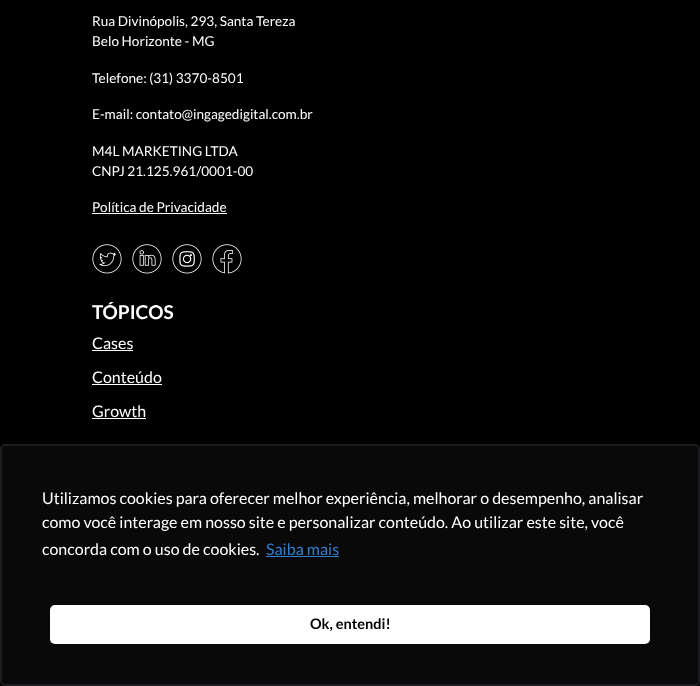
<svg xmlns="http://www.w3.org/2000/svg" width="700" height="686">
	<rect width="100%" height="100%" fill="#000000" />
	<g font-family="Lato" font-size="13.6" fill="#FFFFFF">
		<text x="92" y="26">Rua Divinópolis, 293, Santa Tereza</text>
		<text x="92" y="46">Belo Horizonte - MG</text>
		<text x="92" y="83">Telefone: (31) 3370-8501</text>
		<text x="92" y="119">E-mail: contato@ingagedigital.com.br</text>
		<text x="92" y="156">M4L MARKETING LTDA</text>
		<text x="92" y="176">CNPJ 21.125.961/0001-00</text>
		<text x="92" y="212">Política de Privacidade</text>
	</g>
	<rect x="92" y="213" width="135" height="1" fill="#FFFFFF" />
	<image x="92" y="244" width="30" height="30" href="assets/img1.png" />
	<image x="132" y="244" width="30" height="30" href="assets/img2.png" />
	<image x="172" y="244" width="30" height="30" href="assets/img3.png" />
	<image x="212" y="244" width="30" height="30" href="assets/img4.png" />
	<text x="92" y="319" font-family="Lato" font-size="19" font-weight="700" fill="#FFFFFF">TÓPICOS</text>
	<text x="92" y="349" font-family="Lato" font-size="16" fill="#FFFFFF">Cases</text>
	<rect x="92" y="350" width="41" height="1" fill="#FFFFFF" />
	<text x="92" y="383" font-family="Lato" font-size="16" fill="#FFFFFF">Conteúdo</text>
	<rect x="92" y="384" width="70" height="1" fill="#FFFFFF" />
	<text x="92" y="417" font-family="Lato" font-size="16" fill="#FFFFFF">Growth</text>
	<rect x="92" y="418" width="54" height="1" fill="#FFFFFF" />
	<rect x="1" y="446" width="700" height="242" rx="5" fill="#636E7C" fill-opacity="0.1" filter="blur(2px)" />
	<rect x="0" y="444" width="700" height="242" rx="5" fill="#090909" />
	<rect x="1" y="445" width="698" height="240" rx="4" fill="none" stroke="#636E7C" stroke-opacity="0.2" stroke-width="2" />
	<g font-family="Lato" font-size="16" fill="#FFFFFF">
		<text x="42" y="504">Utilizamos cookies para oferecer melhor experiência, melhorar o desempenho, analisar</text>
		<text x="42" y="528">como você interage em nosso site e personalizar conteúdo. Ao utilizar este site, você</text>
		<text x="42" y="555">concorda com o uso de cookies.</text>
	</g>
	<text x="266" y="555" font-family="Lato" font-size="16" fill="#357FCE">Saiba mais</text>
	<rect x="266" y="556" width="73" height="1" fill="#357FCE" />
	<rect x="50" y="605" width="600" height="39" rx="5" fill="#FFFFFF" />
	<text x="310" y="629" font-family="Lato" font-size="14.5" font-weight="700" fill="#000000">Ok, entendi!</text>
</svg>
